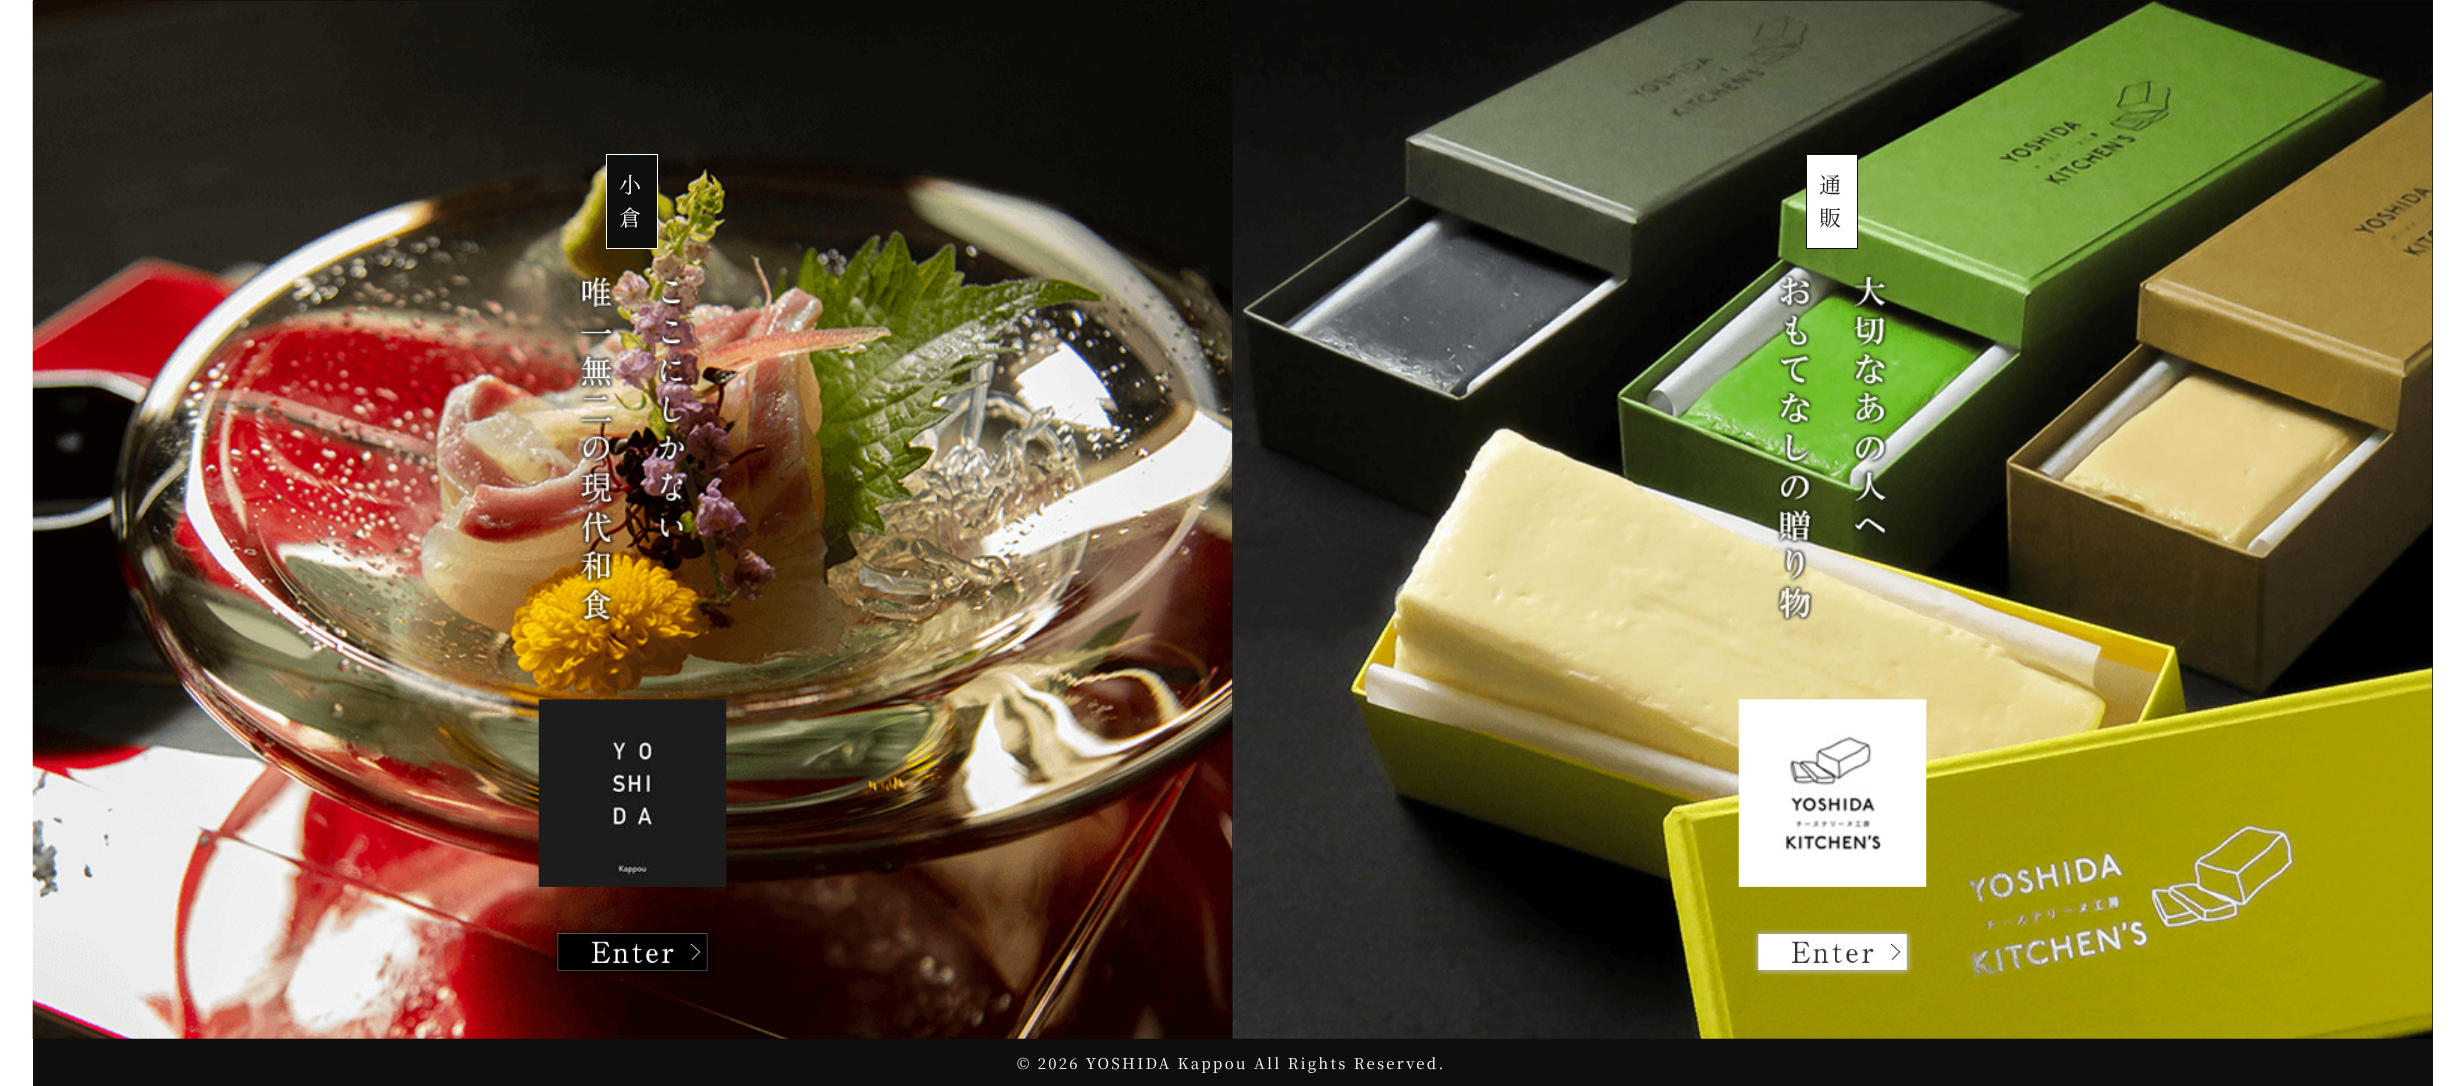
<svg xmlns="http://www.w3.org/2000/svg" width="2463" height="1086">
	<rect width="100%" height="100%" fill="#FFFFFF" />
	<rect x="33" y="0" width="2400" height="1086" fill="#0E0E0E" />
	<image x="32" y="0" width="1201" height="1039" href="assets/img1.png" />
	<rect x="606.5" y="154.5" width="51" height="94" fill="#0E0E0E" stroke="#FFFFFF" />
	<g font-family="Noto Serif JP" font-size="22" letter-spacing="2.25" fill="#FFFFFF">
		<text x="619" y="193">小</text>
		<text x="619" y="226">倉</text>
	</g>
	<image x="578" y="274" width="109" height="349" href="assets/img2.png" />
	<image x="538" y="699" width="189" height="188" href="assets/img3.png" />
	<rect x="558" y="934" width="150" height="37" fill="#000000" filter="blur(3px)" />
	<image x="557" y="933" width="151" height="38" href="assets/img4.png" />
	<image x="1232" y="0" width="1201" height="1039" href="assets/img5.png" />
	<rect x="1806.5" y="154.5" width="51" height="94" fill="#FFFFFF" stroke="#0E0E0E" />
	<g font-family="Noto Serif JP" font-size="22" letter-spacing="2.25" fill="#222222">
		<text x="1819" y="193">通</text>
		<text x="1819" y="226">販</text>
	</g>
	<image x="1776" y="273" width="112" height="349" href="assets/img6.png" />
	<image x="1738" y="699" width="189" height="188" href="assets/img7.png" />
	<rect x="1758" y="934" width="150" height="37" fill="#CCCCCC" filter="blur(3px)" />
	<image x="1757" y="933" width="151" height="38" href="assets/img8.png" />
	<text x="1017" y="1069" font-family="Noto Serif JP" font-size="15" letter-spacing="2.25" fill="#FFFFFF">© 2026 YOSHIDA Kappou All Rights Reserved.</text>
</svg>
